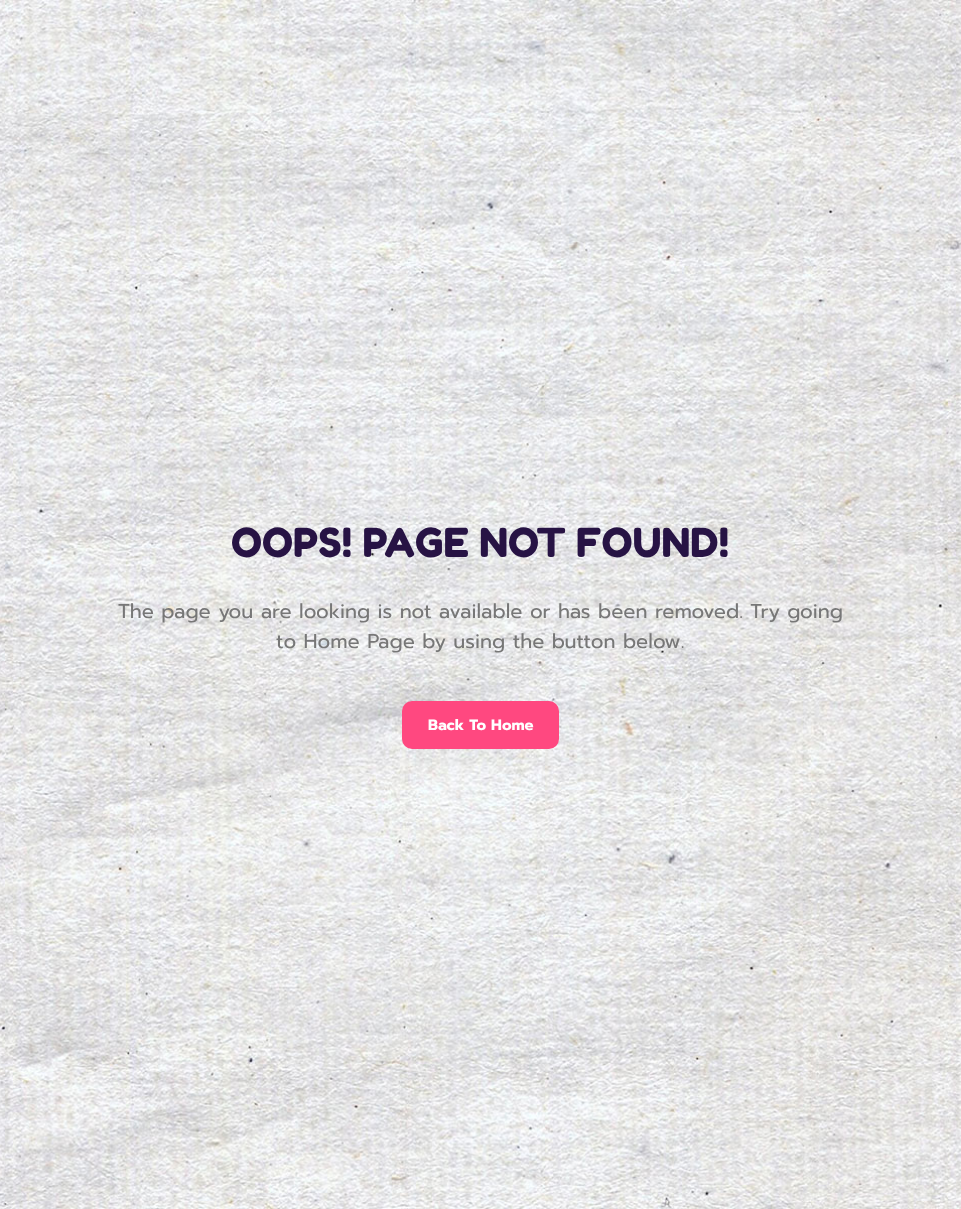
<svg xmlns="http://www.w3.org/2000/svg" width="961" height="1209">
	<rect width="100%" height="100%" fill="#FFFFFF" />
	<image x="0" y="0" width="961" height="1209" href="assets/img1.png" />
	<text x="231" y="557" font-family="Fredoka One" font-size="40" fill="#271344">OOPS! PAGE NOT FOUND!</text>
	<g font-family="Prompt" font-size="20" fill="#777777">
		<text x="118" y="618">The page you are looking is not available or has been removed. Try going</text>
		<text x="276" y="648">to Home Page by using the button below.</text>
	</g>
	<rect x="402" y="701" width="157" height="48" rx="10" fill="#FF4880" />
	<text x="428" y="730" font-family="Prompt" font-size="15" font-weight="700" fill="#FFFFFF">Back To Home</text>
</svg>
